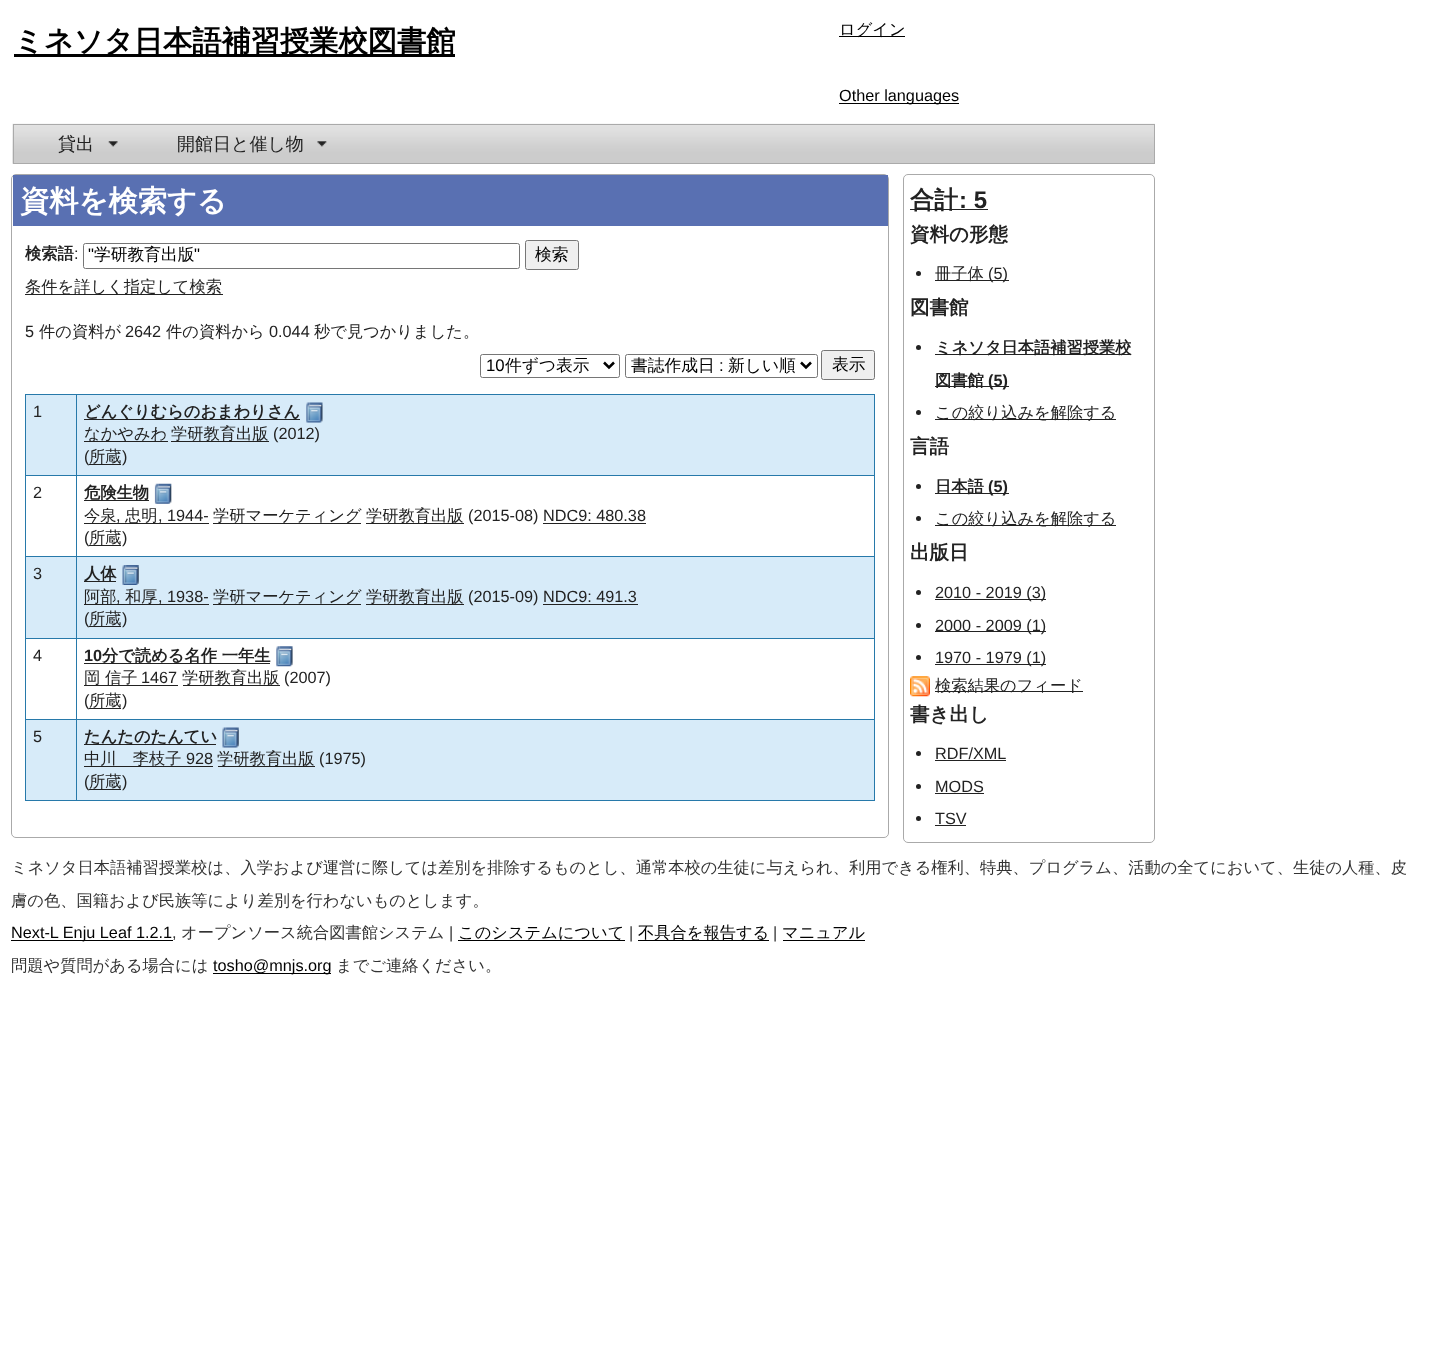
<svg xmlns="http://www.w3.org/2000/svg" width="1429" height="1371">
	<rect width="100%" height="100%" fill="#FFFFFF" />
	<rect x="14" y="54" width="441" height="3" fill="#000000" />
	<text x="14" y="51" font-family="WenQuanYi Zen Hei" font-size="29.25" font-weight="700" fill="#000000">ミネソタ日本語補習授業校図書館</text>
	<rect x="839" y="36" width="66" height="1" fill="#000000" />
	<text x="839" y="35" font-family="WenQuanYi Zen Hei" font-size="16.25" font-weight="500" fill="#000000">ログイン</text>
	<rect x="839" y="103" width="120" height="1" fill="#000000" />
	<text x="839" y="101" font-family="Liberation Sans" font-size="16.25" fill="#000000">Other languages</text>
	<image x="12" y="123" width="1143" height="41" href="assets/img1.png" />
	<rect x="13.5" y="124.5" width="1141" height="39" fill="none" stroke="#AAAAAA" />
	<text x="58" y="150" font-family="WenQuanYi Zen Hei" font-size="18" font-weight="500" fill="#222222">貸出</text>
	<image x="108" y="141" width="10" height="6" href="assets/img2.png" />
	<text x="177" y="150" font-family="WenQuanYi Zen Hei" font-size="18" font-weight="500" fill="#222222">開館日と催し物</text>
	<image x="317" y="141" width="10" height="6" href="assets/img3.png" />
	<rect x="11.5" y="174.5" width="877" height="663" rx="4.5" fill="none" stroke="#AAAAAA" />
	<rect x="13" y="175" width="875" height="51" fill="#5970B2" />
	<text x="20" y="211" font-family="WenQuanYi Zen Hei" font-size="29.25" font-weight="700" fill="#FFFFFF">資料を検索する</text>
	<text x="25" y="259" font-family="WenQuanYi Zen Hei" font-size="16.25" font-weight="700" fill="#222222">検索語</text>
	<text x="74" y="259" font-family="Liberation Sans" font-size="16.25" fill="#222222">:</text>
	<rect x="83.5" y="243.5" width="436" height="25" rx="2" fill="none" stroke="#767676" />
	<text x="88" y="260" font-family="Liberation Sans" font-size="16.75" fill="#000000">"</text>
	<text x="94" y="260" font-family="WenQuanYi Zen Hei" font-size="16.75" font-weight="500" fill="#000000">学研教育出版</text>
	<text x="194" y="260" font-family="Liberation Sans" font-size="16.75" fill="#000000">"</text>
	<rect x="525.5" y="240.5" width="53" height="29" rx="2" fill="#EFEFEF" stroke="#767676" />
	<text x="535" y="260" font-family="WenQuanYi Zen Hei" font-size="16.75" font-weight="500" fill="#000000">検索</text>
	<rect x="25" y="294" width="198" height="1" fill="#222222" />
	<text x="25" y="292" font-family="WenQuanYi Zen Hei" font-size="16.25" font-weight="500" fill="#222222">条件を詳しく指定して検索</text>
	<text x="25" y="337" font-family="Liberation Sans" font-size="16.25" fill="#222222">5</text>
	<text x="39" y="337" font-family="WenQuanYi Zen Hei" font-size="16.25" font-weight="500" fill="#222222">件の資料が</text>
	<text x="125" y="337" font-family="Liberation Sans" font-size="16.25" fill="#222222">2642</text>
	<text x="166" y="337" font-family="WenQuanYi Zen Hei" font-size="16.25" font-weight="500" fill="#222222">件の資料から</text>
	<text x="269" y="337" font-family="Liberation Sans" font-size="16.25" fill="#222222">0.044</text>
	<text x="314" y="337" font-family="WenQuanYi Zen Hei" font-size="16.25" font-weight="500" fill="#222222">秒で見つかりました。</text>
	<rect x="480.5" y="354.5" width="139" height="23" rx="2" fill="none" stroke="#767676" />
	<path d="M604 362.5L609 367.5L614 362.5" fill="none" stroke="#000000" stroke-width="2.5" />
	<text x="486" y="371" font-family="Liberation Sans" font-size="16.75" fill="#000000">10</text>
	<text x="505" y="371" font-family="WenQuanYi Zen Hei" font-size="16.75" font-weight="500" fill="#000000">件ずつ表示</text>
	<rect x="625.5" y="354.5" width="192" height="23" rx="2" fill="none" stroke="#767676" />
	<path d="M801 362.5L806 367.5L811 362.5" fill="none" stroke="#000000" stroke-width="2.5" />
	<text x="631" y="371" font-family="WenQuanYi Zen Hei" font-size="16.75" font-weight="500" fill="#000000">書誌作成日</text>
	<text x="719" y="371" font-family="Liberation Sans" font-size="16.75" fill="#000000">:</text>
	<text x="728" y="371" font-family="WenQuanYi Zen Hei" font-size="16.75" font-weight="500" fill="#000000">新しい順</text>
	<rect x="821.5" y="350.5" width="53" height="29" rx="2" fill="#EFEFEF" stroke="#767676" />
	<text x="832" y="370" font-family="WenQuanYi Zen Hei" font-size="16.75" font-weight="500" fill="#000000">表示</text>
	<rect x="25" y="394" width="850" height="1" fill="#2779AA" />
	<rect x="874" y="394" width="1" height="407" fill="#2779AA" />
	<rect x="25" y="800" width="850" height="1" fill="#2779AA" />
	<rect x="25" y="394" width="1" height="407" fill="#2779AA" />
	<rect x="26" y="395" width="848" height="80" fill="#D7EBF9" />
	<text x="33" y="417" font-family="Liberation Sans" font-size="16.25" fill="#222222">1</text>
	<rect x="76" y="475" width="799" height="1" fill="#2779AA" />
	<rect x="26" y="557" width="848" height="81" fill="#D7EBF9" />
	<rect x="76" y="556" width="799" height="1" fill="#2779AA" />
	<rect x="76" y="638" width="799" height="1" fill="#2779AA" />
	<rect x="76" y="719" width="799" height="1" fill="#2779AA" />
	<rect x="26" y="720" width="848" height="80" fill="#D7EBF9" />
	<rect x="76" y="719" width="1" height="82" fill="#2779AA" />
	<rect x="25" y="719" width="53" height="1" fill="#2779AA" />
	<rect x="76" y="638" width="1" height="82" fill="#2779AA" />
	<rect x="25" y="638" width="53" height="1" fill="#2779AA" />
	<rect x="76" y="556" width="1" height="83" fill="#2779AA" />
	<rect x="25" y="556" width="53" height="1" fill="#2779AA" />
	<rect x="76" y="475" width="1" height="83" fill="#2779AA" />
	<rect x="25" y="475" width="53" height="1" fill="#2779AA" />
	<rect x="76" y="394" width="1" height="82" fill="#2779AA" />
	<rect x="84" y="419" width="216" height="1" fill="#222222" />
	<text x="84" y="417" font-family="WenQuanYi Zen Hei" font-size="16.25" font-weight="700" fill="#222222">どんぐりむらのおまわりさん</text>
	<image x="306" y="402" width="17" height="21" href="assets/img4.png" />
	<rect x="84" y="441" width="84" height="1" fill="#222222" />
	<text x="84" y="439" font-family="WenQuanYi Zen Hei" font-size="16.25" font-weight="500" fill="#222222">なかやみわ</text>
	<rect x="171" y="441" width="98" height="1" fill="#222222" />
	<text x="171" y="439" font-family="WenQuanYi Zen Hei" font-size="16.25" font-weight="500" fill="#222222">学研教育出版</text>
	<g font-family="Liberation Sans" font-size="16.25" fill="#222222">
		<text x="273" y="439">(2012)</text>
		<text x="84" y="462">(</text>
	</g>
	<text x="89" y="462" font-family="WenQuanYi Zen Hei" font-size="16.25" font-weight="500" fill="#222222">所蔵</text>
	<rect x="89" y="464" width="32" height="1" fill="#222222" />
	<g font-family="Liberation Sans" font-size="16.25" fill="#222222">
		<text x="122" y="462">)</text>
		<text x="33" y="498">2</text>
	</g>
	<rect x="84" y="500" width="65" height="1" fill="#222222" />
	<text x="84" y="498" font-family="WenQuanYi Zen Hei" font-size="16.25" font-weight="700" fill="#222222">危険生物</text>
	<image x="154" y="483" width="18" height="21" href="assets/img5.png" />
	<rect x="84" y="523" width="125" height="1" fill="#222222" />
	<text x="84" y="521" font-family="WenQuanYi Zen Hei" font-size="16.25" font-weight="500" fill="#222222">今泉</text>
	<text x="116" y="521" font-family="Liberation Sans" font-size="16.25" fill="#222222">,</text>
	<text x="125" y="521" font-family="WenQuanYi Zen Hei" font-size="16.25" font-weight="500" fill="#222222">忠明</text>
	<text x="158" y="521" font-family="Liberation Sans" font-size="16.25" fill="#222222">, 1944-</text>
	<rect x="213" y="523" width="148" height="1" fill="#222222" />
	<text x="213" y="521" font-family="WenQuanYi Zen Hei" font-size="16.25" font-weight="500" fill="#222222">学研マーケティング</text>
	<rect x="366" y="523" width="98" height="1" fill="#222222" />
	<text x="366" y="521" font-family="WenQuanYi Zen Hei" font-size="16.25" font-weight="500" fill="#222222">学研教育出版</text>
	<text x="468" y="521" font-family="Liberation Sans" font-size="16.25" fill="#222222">(2015-08) NDC9: 480.38</text>
	<rect x="543" y="523" width="103" height="1" fill="#222222" />
	<text x="84" y="543" font-family="Liberation Sans" font-size="16.25" fill="#222222">(</text>
	<text x="89" y="543" font-family="WenQuanYi Zen Hei" font-size="16.25" font-weight="500" fill="#222222">所蔵</text>
	<rect x="89" y="545" width="32" height="1" fill="#222222" />
	<g font-family="Liberation Sans" font-size="16.25" fill="#222222">
		<text x="122" y="543">)</text>
		<text x="33" y="579">3</text>
	</g>
	<rect x="84" y="581" width="32" height="1" fill="#222222" />
	<text x="84" y="579" font-family="WenQuanYi Zen Hei" font-size="16.25" font-weight="700" fill="#222222">人体</text>
	<image x="122" y="565" width="17" height="20" href="assets/img6.png" />
	<rect x="84" y="604" width="125" height="1" fill="#222222" />
	<text x="84" y="602" font-family="WenQuanYi Zen Hei" font-size="16.25" font-weight="500" fill="#222222">阿部</text>
	<text x="116" y="602" font-family="Liberation Sans" font-size="16.25" fill="#222222">,</text>
	<text x="125" y="602" font-family="WenQuanYi Zen Hei" font-size="16.25" font-weight="500" fill="#222222">和厚</text>
	<text x="158" y="602" font-family="Liberation Sans" font-size="16.25" fill="#222222">, 1938-</text>
	<rect x="213" y="604" width="148" height="1" fill="#222222" />
	<text x="213" y="602" font-family="WenQuanYi Zen Hei" font-size="16.25" font-weight="500" fill="#222222">学研マーケティング</text>
	<rect x="366" y="604" width="98" height="1" fill="#222222" />
	<text x="366" y="602" font-family="WenQuanYi Zen Hei" font-size="16.25" font-weight="500" fill="#222222">学研教育出版</text>
	<text x="468" y="602" font-family="Liberation Sans" font-size="16.25" fill="#222222">(2015-09) NDC9: 491.3</text>
	<rect x="543" y="604" width="95" height="1" fill="#222222" />
	<text x="84" y="624" font-family="Liberation Sans" font-size="16.25" fill="#222222">(</text>
	<text x="89" y="624" font-family="WenQuanYi Zen Hei" font-size="16.25" font-weight="500" fill="#222222">所蔵</text>
	<rect x="89" y="626" width="32" height="1" fill="#222222" />
	<g font-family="Liberation Sans" font-size="16.25" fill="#222222">
		<text x="122" y="624">)</text>
		<text x="33" y="661">4</text>
	</g>
	<text x="84" y="661" font-family="Liberation Sans" font-size="16.25" font-weight="700" fill="#222222">10</text>
	<rect x="84" y="663" width="186" height="1" fill="#222222" />
	<text x="102" y="661" font-family="WenQuanYi Zen Hei" font-size="16.25" font-weight="700" fill="#222222">分で読める名作 一年生</text>
	<image x="276" y="646" width="17" height="21" href="assets/img7.png" />
	<rect x="84" y="685" width="94" height="1" fill="#222222" />
	<text x="84" y="683" font-family="WenQuanYi Zen Hei" font-size="16.25" font-weight="500" fill="#222222">岡 信子</text>
	<text x="141" y="683" font-family="Liberation Sans" font-size="16.25" fill="#222222">1467</text>
	<rect x="183" y="685" width="97" height="1" fill="#222222" />
	<text x="182" y="683" font-family="WenQuanYi Zen Hei" font-size="16.25" font-weight="500" fill="#222222">学研教育出版</text>
	<g font-family="Liberation Sans" font-size="16.25" fill="#222222">
		<text x="284" y="683">(2007)</text>
		<text x="84" y="706">(</text>
	</g>
	<text x="89" y="706" font-family="WenQuanYi Zen Hei" font-size="16.25" font-weight="500" fill="#222222">所蔵</text>
	<rect x="89" y="708" width="32" height="1" fill="#222222" />
	<g font-family="Liberation Sans" font-size="16.25" fill="#222222">
		<text x="122" y="706">)</text>
		<text x="33" y="742">5</text>
	</g>
	<rect x="84" y="744" width="132" height="1" fill="#222222" />
	<text x="84" y="742" font-family="WenQuanYi Zen Hei" font-size="16.25" font-weight="700" fill="#222222">たんたのたんてい</text>
	<image x="222" y="727" width="17" height="21" href="assets/img8.png" />
	<rect x="84" y="766" width="129" height="1" fill="#222222" />
	<text x="84" y="764" font-family="WenQuanYi Zen Hei" font-size="16.25" font-weight="500" fill="#222222">中川　李枝子</text>
	<text x="186" y="764" font-family="Liberation Sans" font-size="16.25" fill="#222222">928</text>
	<rect x="218" y="766" width="97" height="1" fill="#222222" />
	<text x="217" y="764" font-family="WenQuanYi Zen Hei" font-size="16.25" font-weight="500" fill="#222222">学研教育出版</text>
	<g font-family="Liberation Sans" font-size="16.25" fill="#222222">
		<text x="319" y="764">(1975)</text>
		<text x="84" y="787">(</text>
	</g>
	<text x="89" y="787" font-family="WenQuanYi Zen Hei" font-size="16.25" font-weight="500" fill="#222222">所蔵</text>
	<rect x="89" y="789" width="32" height="1" fill="#222222" />
	<text x="122" y="787" font-family="Liberation Sans" font-size="16.25" fill="#222222">)</text>
	<rect x="903.5" y="174.5" width="251" height="668" rx="4.5" fill="none" stroke="#AAAAAA" />
	<rect x="910" y="209" width="78" height="1" fill="#222222" />
	<text x="910" y="208" font-family="WenQuanYi Zen Hei" font-size="24" font-weight="700" fill="#222222">合計</text>
	<text x="959" y="208" font-family="Liberation Sans" font-size="24" font-weight="700" fill="#222222">: 5</text>
	<text x="910" y="241" font-family="WenQuanYi Zen Hei" font-size="19.5" font-weight="700" fill="#222222">資料の形態</text>
	<circle cx="918.5" cy="273.5" r="2.5" fill="#222222" />
	<rect x="935" y="280" width="74" height="1" fill="#222222" />
	<text x="935" y="279" font-family="WenQuanYi Zen Hei" font-size="16.25" font-weight="500" fill="#222222">冊子体</text>
	<text x="988" y="279" font-family="Liberation Sans" font-size="16.25" fill="#222222">(5)</text>
	<text x="910" y="314" font-family="WenQuanYi Zen Hei" font-size="19.5" font-weight="700" fill="#222222">図書館</text>
	<circle cx="918.5" cy="347.5" r="2.5" fill="#222222" />
	<rect x="935" y="354" width="196" height="1" fill="#222222" />
	<text x="935" y="353" font-family="WenQuanYi Zen Hei" font-size="16.25" font-weight="700" fill="#222222">ミネソタ日本語補習授業校</text>
	<rect x="935" y="386" width="74" height="1" fill="#222222" />
	<text x="935" y="386" font-family="WenQuanYi Zen Hei" font-size="16.25" font-weight="700" fill="#222222">図書館</text>
	<text x="988" y="386" font-family="Liberation Sans" font-size="16.25" font-weight="700" fill="#222222">(5)</text>
	<circle cx="918.5" cy="412.5" r="2.5" fill="#222222" />
	<rect x="935" y="419" width="181" height="1" fill="#222222" />
	<text x="935" y="418" font-family="WenQuanYi Zen Hei" font-size="16.25" font-weight="500" fill="#222222">この絞り込みを解除する</text>
	<text x="910" y="453" font-family="WenQuanYi Zen Hei" font-size="19.5" font-weight="700" fill="#222222">言語</text>
	<circle cx="918.5" cy="486.5" r="2.5" fill="#222222" />
	<rect x="935" y="493" width="74" height="1" fill="#222222" />
	<text x="935" y="492" font-family="WenQuanYi Zen Hei" font-size="16.25" font-weight="700" fill="#222222">日本語</text>
	<text x="988" y="492" font-family="Liberation Sans" font-size="16.25" font-weight="700" fill="#222222">(5)</text>
	<circle cx="918.5" cy="518.5" r="2.5" fill="#222222" />
	<rect x="935" y="525" width="181" height="1" fill="#222222" />
	<text x="935" y="524" font-family="WenQuanYi Zen Hei" font-size="16.25" font-weight="500" fill="#222222">この絞り込みを解除する</text>
	<text x="910" y="559" font-family="WenQuanYi Zen Hei" font-size="19.5" font-weight="700" fill="#222222">出版日</text>
	<circle cx="918.5" cy="592.5" r="2.5" fill="#222222" />
	<rect x="935" y="599" width="111" height="1" fill="#222222" />
	<text x="935" y="598" font-family="Liberation Sans" font-size="16.25" fill="#222222">2010 - 2019 (3)</text>
	<circle cx="918.5" cy="625.5" r="2.5" fill="#222222" />
	<rect x="935" y="631" width="111" height="1" fill="#222222" />
	<text x="935" y="631" font-family="Liberation Sans" font-size="16.25" fill="#222222">2000 - 2009 (1)</text>
	<circle cx="918.5" cy="657.5" r="2.5" fill="#222222" />
	<rect x="935" y="664" width="111" height="1" fill="#222222" />
	<text x="935" y="663" font-family="Liberation Sans" font-size="16.25" fill="#222222">1970 - 1979 (1)</text>
	<image x="910" y="676" width="20" height="21" href="assets/img9.png" />
	<rect x="935" y="691" width="148" height="1" fill="#222222" />
	<text x="935" y="691" font-family="WenQuanYi Zen Hei" font-size="16.25" font-weight="500" fill="#222222">検索結果のフィード</text>
	<text x="910" y="721" font-family="WenQuanYi Zen Hei" font-size="19.5" font-weight="700" fill="#222222">書き出し</text>
	<circle cx="918.5" cy="753.5" r="2.5" fill="#222222" />
	<text x="935" y="759" font-family="Liberation Sans" font-size="16.25" fill="#222222">RDF/XML</text>
	<rect x="935" y="760" width="71" height="1" fill="#222222" />
	<circle cx="918.5" cy="786.5" r="2.5" fill="#222222" />
	<text x="935" y="792" font-family="Liberation Sans" font-size="16.25" fill="#222222">MODS</text>
	<rect x="935" y="793" width="49" height="1" fill="#222222" />
	<circle cx="918.5" cy="818.5" r="2.5" fill="#222222" />
	<text x="935" y="824" font-family="Liberation Sans" font-size="16.25" fill="#222222">TSV</text>
	<rect x="935" y="825" width="31" height="1" fill="#222222" />
	<g font-family="WenQuanYi Zen Hei" font-size="16.25" font-weight="500" fill="#333333">
		<text x="11" y="873">ミネソタ日本語補習授業校は、入学および運営に際しては差別を排除するものとし、通常本校の生徒に与えられ、利用できる権利、特典、プログラム、活動の全てにおいて、生徒の人種、皮</text>
		<text x="11" y="906">膚の色、国籍および民族等により差別を行わないものとします。</text>
	</g>
	<rect x="11" y="940" width="162" height="1" fill="#000000" />
	<text x="11" y="938" font-family="Liberation Sans" font-size="16.25" fill="#000000">Next-L Enju Leaf 1.2.1</text>
	<text x="172" y="938" font-family="Liberation Sans" font-size="16.25" fill="#333333">,</text>
	<text x="181" y="938" font-family="WenQuanYi Zen Hei" font-size="16.25" font-weight="500" fill="#333333">オープンソース統合図書館システム</text>
	<text x="449" y="938" font-family="Liberation Sans" font-size="16.25" fill="#333333">|</text>
	<text x="458" y="938" font-family="WenQuanYi Zen Hei" font-size="16.25" font-weight="500" fill="#000000">このシステムについて</text>
	<rect x="458" y="940" width="167" height="1" fill="#000000" />
	<text x="629" y="938" font-family="Liberation Sans" font-size="16.25" fill="#333333">|</text>
	<rect x="638" y="940" width="131" height="1" fill="#000000" />
	<text x="638" y="938" font-family="WenQuanYi Zen Hei" font-size="16.25" font-weight="500" fill="#000000">不具合を報告する</text>
	<text x="773" y="938" font-family="Liberation Sans" font-size="16.25" fill="#333333">|</text>
	<text x="782" y="938" font-family="WenQuanYi Zen Hei" font-size="16.25" font-weight="500" fill="#000000">マニュアル</text>
	<rect x="783" y="940" width="82" height="1" fill="#000000" />
	<text x="11" y="971" font-family="WenQuanYi Zen Hei" font-size="16.25" font-weight="500" fill="#333333">問題や質問がある場合には</text>
	<rect x="213" y="973" width="118" height="1" fill="#000000" />
	<text x="213" y="971" font-family="Liberation Sans" font-size="16.25" fill="#000000">tosho@mnjs.org</text>
	<text x="336" y="971" font-family="WenQuanYi Zen Hei" font-size="16.25" font-weight="500" fill="#333333">までご連絡ください。</text>
</svg>
